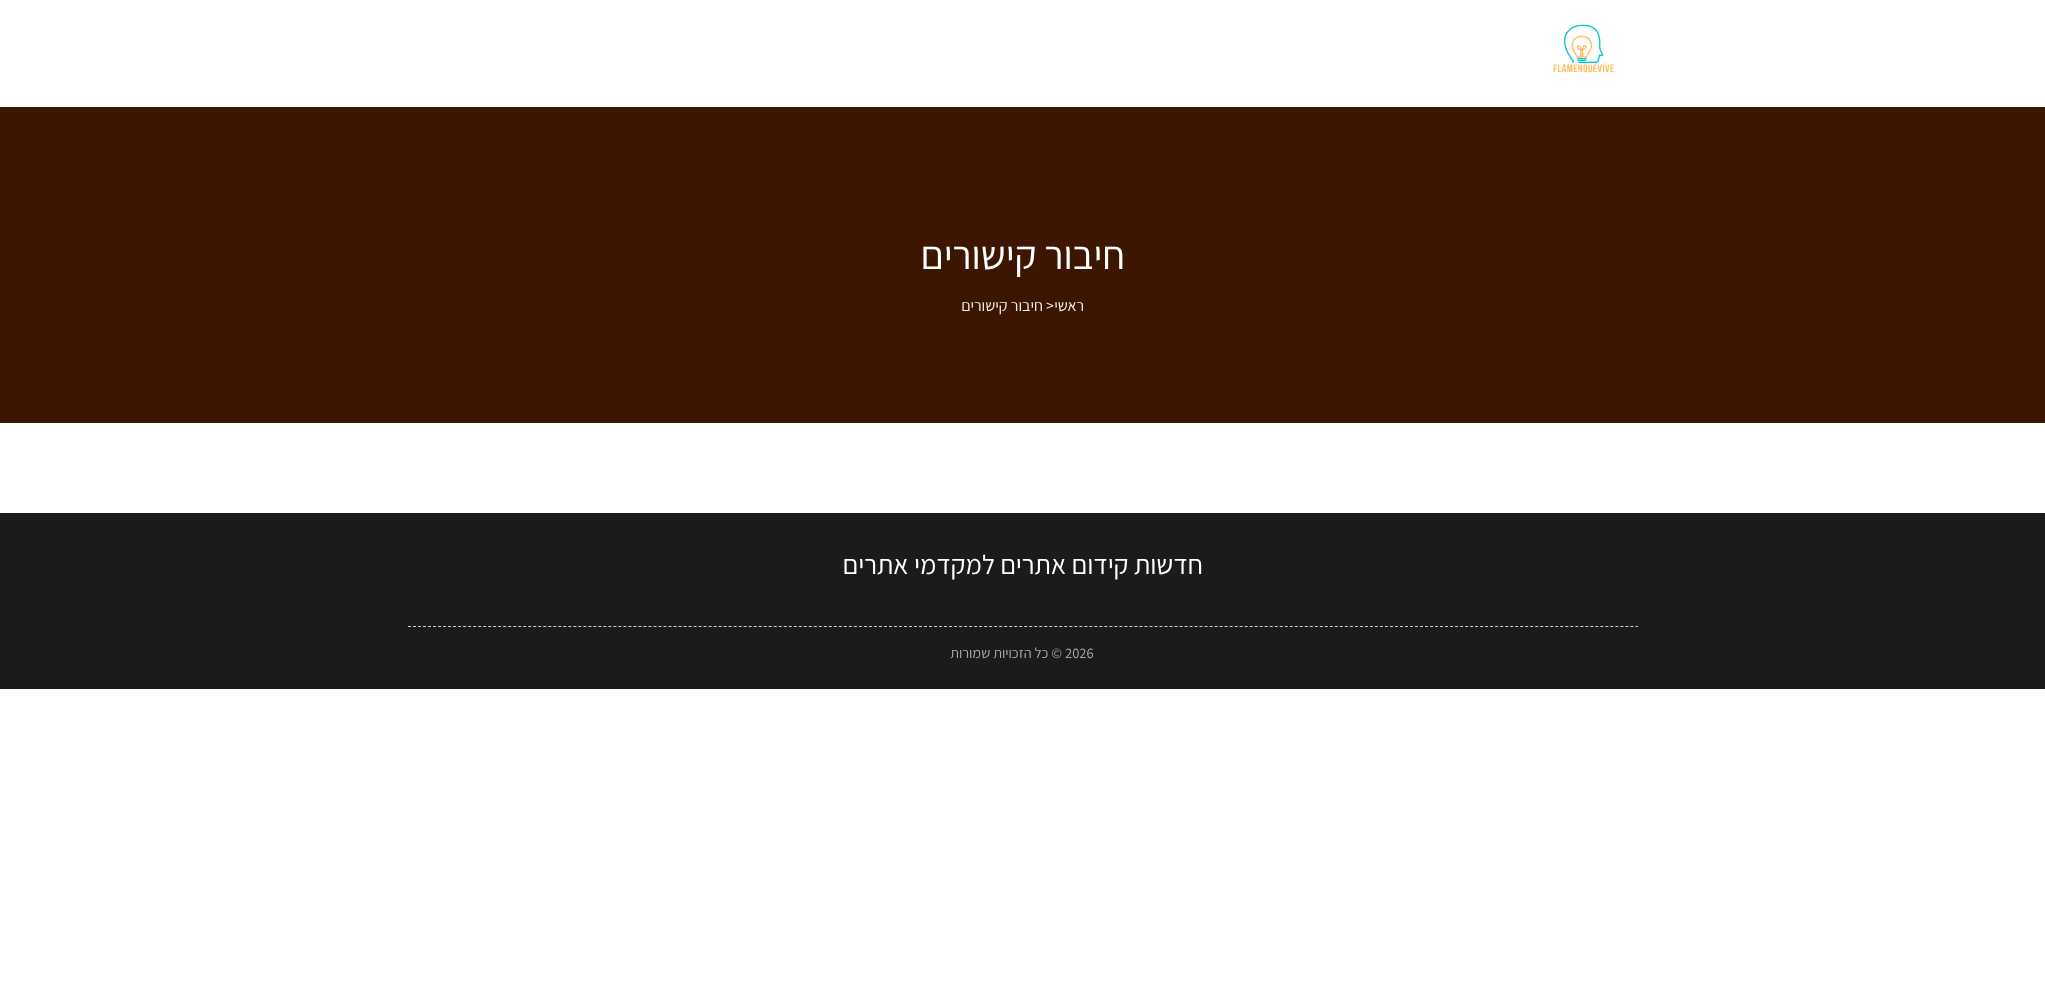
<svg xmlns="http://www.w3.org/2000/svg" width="2045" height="993">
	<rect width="100%" height="100%" fill="#FFFFFF" />
	<image x="1553" y="24" width="61" height="49" href="assets/img1.png" />
	<rect x="0" y="107" width="2045" height="316" fill="#3C1601" />
	<text x="1125" y="269" font-family="Assistant" font-size="40" direction="rtl" fill="#FFFFFF">חיבור קישורים</text>
	<text x="1084" y="311" font-family="Assistant" font-size="16" direction="rtl" fill="#EFEFEF">ראשי</text>
	<text x="1046" y="311" font-family="Assistant" font-size="16" fill="#EFEFEF">&gt;</text>
	<text x="1043" y="311" font-family="Assistant" font-size="16" direction="rtl" fill="#EFEFEF">חיבור קישורים</text>
	<rect x="0" y="513" width="2045" height="176" fill="#1B1B1B" />
	<text x="1203" y="574" font-family="Assistant" font-size="27" direction="rtl" fill="#FFFFFF">חדשות קידום אתרים למקדמי אתרים</text>
	<path d="M408 626.5H1638" fill="none" stroke="#CFCFCF" stroke-dasharray="3 2.01" />
	<text x="1065" y="658" font-family="Assistant" font-size="14.5" fill="#AAAAAA">2026</text>
	<text x="1062" y="658" font-family="Assistant" font-size="14.5" direction="rtl" fill="#AAAAAA">© כל הזכויות שמורות</text>
</svg>
